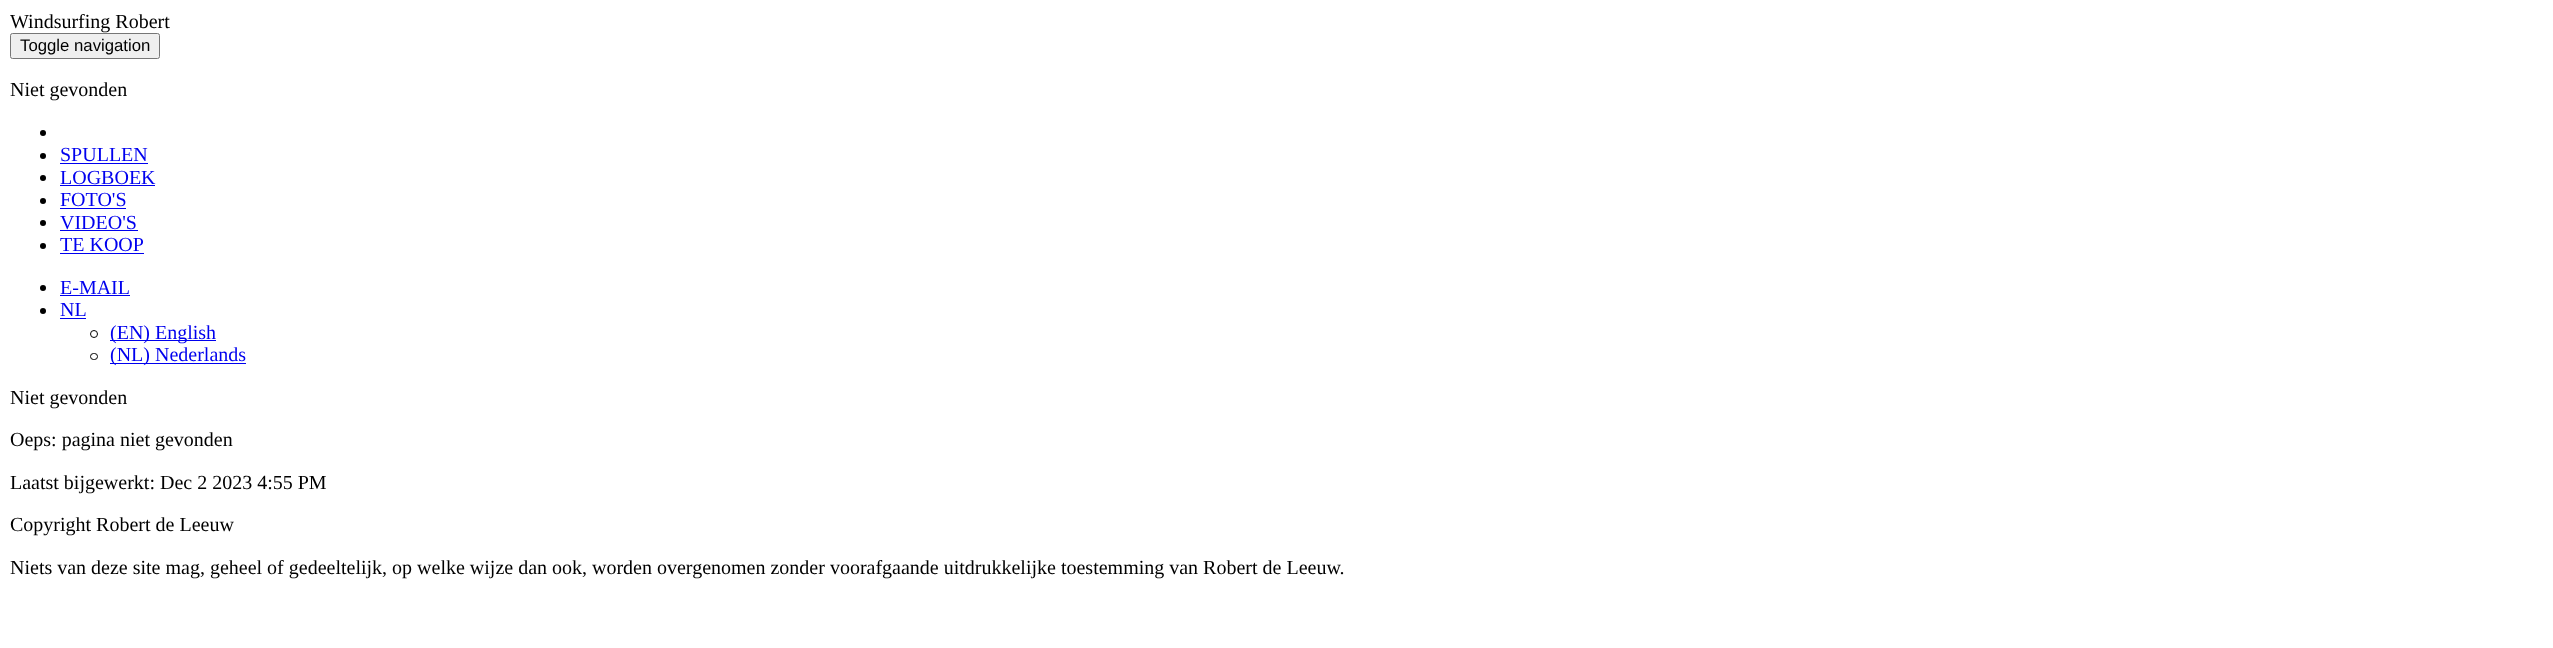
<svg xmlns="http://www.w3.org/2000/svg" width="2553" height="648">
	<rect width="100%" height="100%" fill="#FFFFFF" />
	<text x="10" y="28" font-family="Liberation Serif" font-size="20" fill="#000000">Windsurfing Robert</text>
	<rect x="10.5" y="33.5" width="149" height="25" rx="2" fill="#EFEFEF" stroke="#767676" />
	<text x="20" y="51" font-family="Liberation Sans" font-size="16.75" fill="#000000">Toggle navigation</text>
	<text x="10" y="96" font-family="Liberation Serif" font-size="20" fill="#000000">Niet gevonden</text>
	<circle cx="43" cy="133" r="3" fill="#000000" />
	<circle cx="43" cy="156" r="3" fill="#000000" />
	<text x="60" y="161" font-family="Liberation Serif" font-size="20" fill="#0000EE">SPULLEN</text>
	<rect x="60" y="163" width="88" height="1" fill="#0000EE" />
	<circle cx="43" cy="178" r="3" fill="#000000" />
	<text x="60" y="184" font-family="Liberation Serif" font-size="20" fill="#0000EE">LOGBOEK</text>
	<rect x="60" y="185" width="95" height="1" fill="#0000EE" />
	<circle cx="43" cy="201" r="3" fill="#000000" />
	<text x="60" y="206" font-family="Liberation Serif" font-size="20" fill="#0000EE">FOTO'S</text>
	<rect x="60" y="208" width="66" height="1" fill="#0000EE" />
	<circle cx="43" cy="223" r="3" fill="#000000" />
	<text x="60" y="229" font-family="Liberation Serif" font-size="20" fill="#0000EE">VIDEO'S</text>
	<rect x="60" y="230" width="78" height="1" fill="#0000EE" />
	<circle cx="43" cy="246" r="3" fill="#000000" />
	<text x="60" y="251" font-family="Liberation Serif" font-size="20" fill="#0000EE">TE KOOP</text>
	<rect x="60" y="253" width="84" height="1" fill="#0000EE" />
	<circle cx="43" cy="288" r="3" fill="#000000" />
	<text x="60" y="294" font-family="Liberation Serif" font-size="20" fill="#0000EE">E-MAIL</text>
	<rect x="60" y="295" width="70" height="1" fill="#0000EE" />
	<circle cx="43" cy="311" r="3" fill="#000000" />
	<text x="60" y="316" font-family="Liberation Serif" font-size="20" fill="#0000EE">NL</text>
	<rect x="60" y="318" width="26" height="1" fill="#0000EE" />
	<circle cx="94" cy="334" r="3.5" fill="none" stroke="#000000" />
	<rect x="110" y="340" width="106" height="1" fill="#0000EE" />
	<text x="110" y="339" font-family="Liberation Serif" font-size="20" fill="#0000EE">(EN) English</text>
	<rect x="90.5" y="353.5" width="7" height="6" rx="3" fill="none" stroke="#000000" />
	<rect x="110" y="363" width="136" height="1" fill="#0000EE" />
	<text x="110" y="361" font-family="Liberation Serif" font-size="20" fill="#0000EE">(NL) Nederlands</text>
	<g font-family="Liberation Serif" font-size="20" fill="#000000">
		<text x="10" y="404">Niet gevonden</text>
		<text x="10" y="446">Oeps: pagina niet gevonden</text>
		<text x="10" y="489">Laatst bijgewerkt: Dec 2 2023 4:55 PM</text>
		<text x="10" y="531">Copyright Robert de Leeuw</text>
		<text x="10" y="574">Niets van deze site mag, geheel of gedeeltelijk, op welke wijze dan ook, worden overgenomen zonder voorafgaande uitdrukkelijke toestemming van Robert de Leeuw.</text>
	</g>
</svg>
